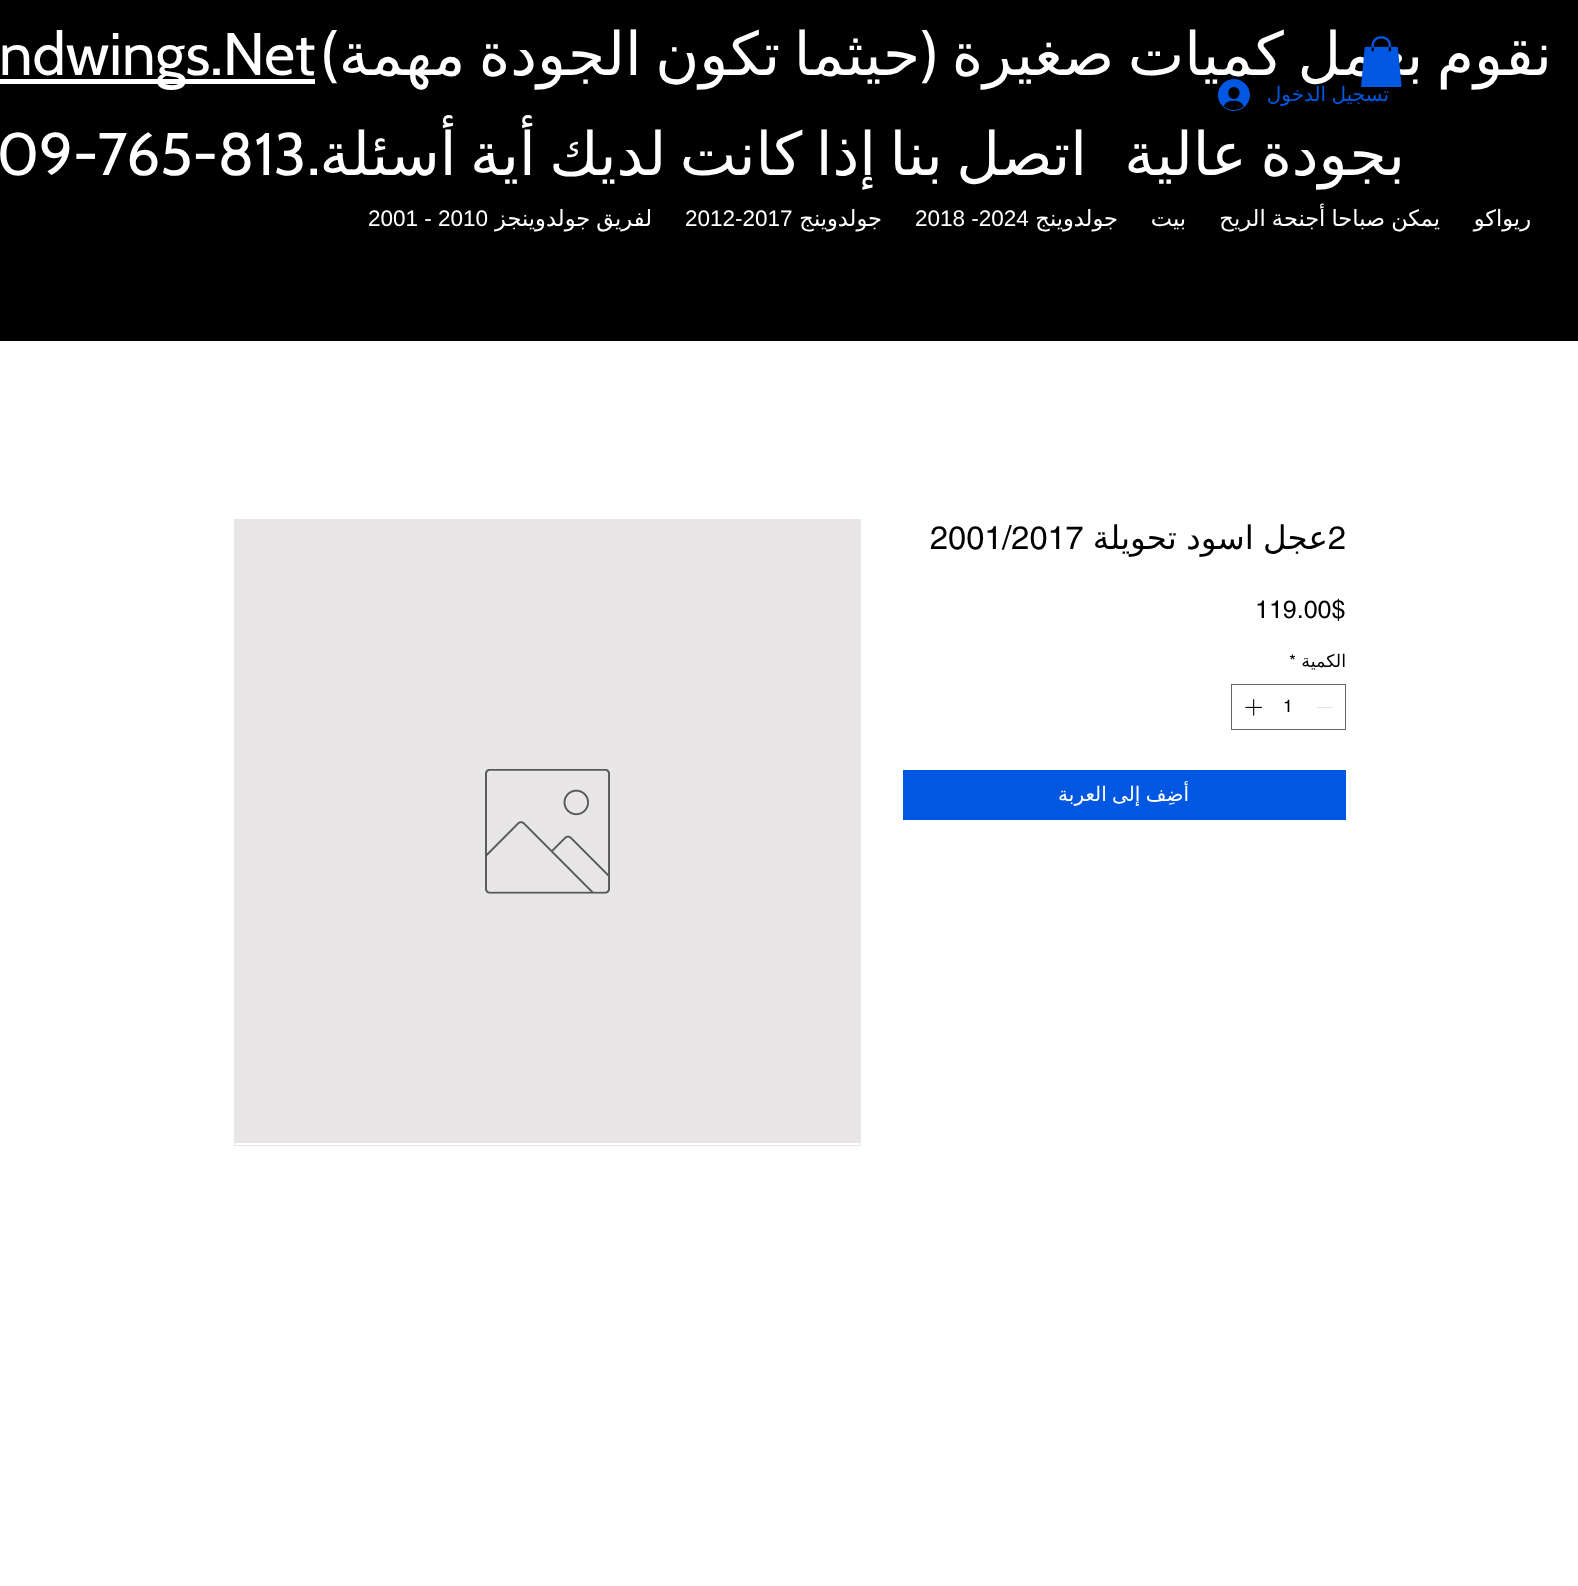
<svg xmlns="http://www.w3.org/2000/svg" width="1578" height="1586">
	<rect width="100%" height="100%" fill="#FFFFFF" />
	<rect x="0" y="0" width="1578" height="341" fill="#000000" />
	<g font-family="DejaVu Sans" font-size="60" direction="rtl" fill="#FFFFFF">
		<text x="1552" y="75" word-spacing="-5.5">نقوم بعمل كميات صغيرة</text>
		<text x="920" y="75" word-spacing="-5.5">حيثما تكون الجودة مهمة</text>
	</g>
	<text x="320" y="75" font-family="Cabin" font-size="60" fill="#FFFFFF">(</text>
	<rect x="0" y="79" width="315" height="5" fill="#FFFFFF" />
	<g font-family="Cabin" font-size="60" fill="#FFFFFF">
		<text x="-1" y="75">ndwings.Net</text>
		<text x="920" y="75">)</text>
	</g>
	<g font-family="DejaVu Sans" font-size="60" direction="rtl" fill="#FFFFFF">
		<text x="1405" y="175" word-spacing="-5.5">بجودة عالية</text>
		<text x="1087" y="175" word-spacing="-5.5">اتصل بنا إذا كانت لديك أية أسئلة</text>
	</g>
	<text x="320" y="175" font-family="Cabin" font-size="60" direction="rtl" fill="#FFFFFF">.</text>
	<text x="-3" y="175" font-family="Cabin" font-size="60" fill="#FFFFFF">09-765-813</text>
	<text x="1389" y="101" word-spacing="-1" font-family="DejaVu Sans" font-size="20" direction="rtl" fill="#0057E1">تسجيل الدخول</text>
	<image x="1361" y="36" width="41" height="51" href="assets/img1.png" />
	<image x="1218" y="79" width="32" height="32" href="assets/img2.png" />
	<g font-family="DejaVu Sans" font-size="22.5" direction="rtl" fill="#FFFFFF">
		<text x="1531" y="226">ريواكو</text>
		<text x="1440" y="226" word-spacing="-1">يمكن صباحا أجنحة الريح</text>
		<text x="1186" y="226">بيت</text>
		<text x="1118" y="226">جولدوينج</text>
	</g>
	<text x="915" y="226" font-family="Liberation Sans" font-size="22.5" fill="#FFFFFF">2018 -2024</text>
	<text x="882" y="226" font-family="DejaVu Sans" font-size="22.5" direction="rtl" fill="#FFFFFF">جولدوينج</text>
	<text x="685" y="226" font-family="Liberation Sans" font-size="22.5" fill="#FFFFFF">2012-2017</text>
	<text x="652" y="226" word-spacing="-1" font-family="DejaVu Sans" font-size="22.5" direction="rtl" fill="#FFFFFF">لفريق جولدوينجز</text>
	<text x="368" y="226" font-family="Liberation Sans" font-size="22.5" fill="#FFFFFF">2001 - 2010</text>
	<text x="1328" y="549" font-family="helvetica" font-size="32.5" fill="#000000">2</text>
	<text x="1328" y="549" word-spacing="-1" font-family="DejaVu Sans" font-size="32.5" direction="rtl" fill="#000000">عجل اسود تحويلة</text>
	<text x="930" y="549" font-family="helvetica" font-size="32.5" fill="#000000">2001/2017</text>
	<text x="1255" y="618" font-family="helvetica" font-size="25" fill="#000000">119.00$</text>
	<text x="1346" y="667" font-family="DejaVu Sans" font-size="17.5" direction="rtl" fill="#000000">الكمية</text>
	<text x="1289" y="667" font-family="helvetica" font-size="17.5" fill="#000000">*</text>
	<rect x="1231.5" y="684.5" width="114" height="45" fill="none" stroke="#666666" />
	<rect x="1317" y="707" width="16" height="1" fill="#E3E3E3" />
	<text x="1283" y="712" font-family="helvetica" font-size="17.5" fill="#000000">1</text>
	<image x="1245" y="699" width="17" height="17" href="assets/img3.png" />
	<rect x="903" y="770" width="443" height="50" fill="#0057E1" />
	<text x="1189" y="801" word-spacing="-1" font-family="DejaVu Sans" font-size="20" direction="rtl" fill="#FFFFFF">أضِف إلى العربة</text>
	<rect x="234.5" y="519.5" width="626" height="626" fill="none" stroke="#E8E6E6" />
	<rect x="235" y="520" width="625" height="623" fill="#E8E6E6" />
	<image x="485" y="769" width="125" height="125" href="assets/img4.png" />
</svg>
